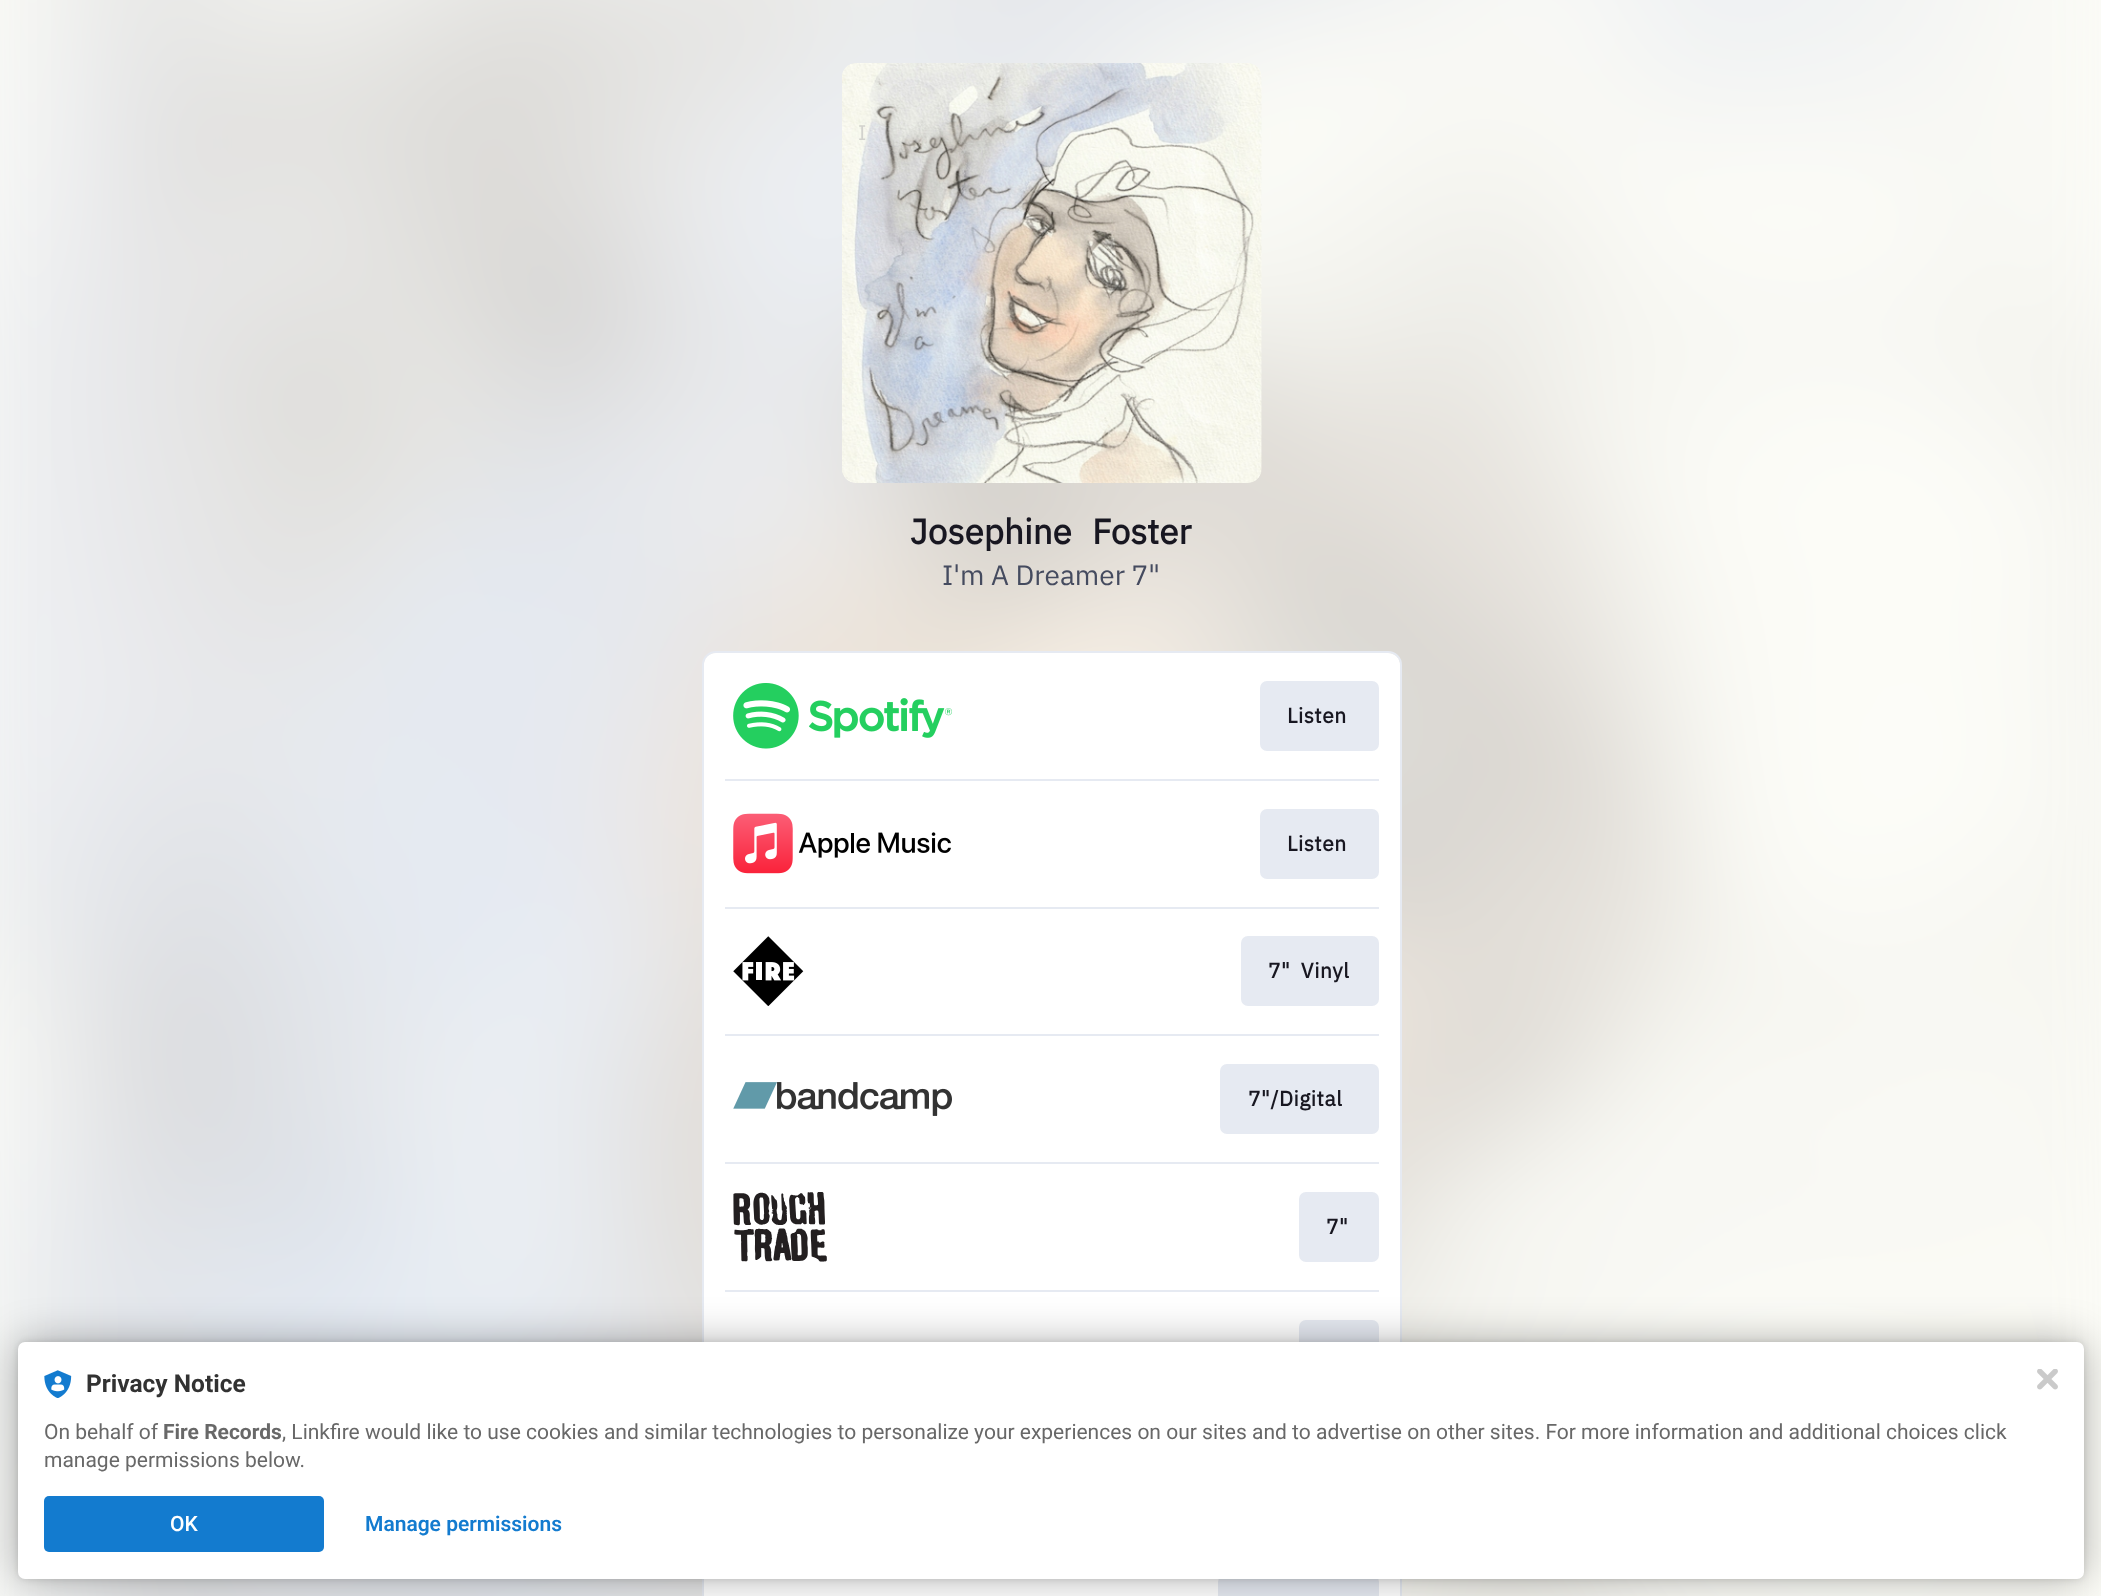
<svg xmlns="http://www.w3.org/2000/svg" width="2101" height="1596">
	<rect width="100%" height="100%" fill="#FFFFFF" />
	<image x="0" y="0" width="2101" height="1596" href="assets/img1.png" />
	<image x="842" y="63" width="420" height="420" href="assets/img2.png" />
	<text x="858" y="140" font-family="IBM Plex Sans" font-size="21" fill="#D2D2CD">I</text>
	<text x="910" y="544" word-spacing="12" font-family="IBM Plex Sans" font-size="35" font-weight="700" fill="#181721">Josephine Foster</text>
	<text x="942" y="585" font-family="IBM Plex Sans" font-size="28" fill="#454B5F">I'm A Dreamer 7"</text>
	<rect x="703" y="652" width="698" height="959" rx="13" fill="none" stroke="#E6EAF2" stroke-width="2" />
	<rect x="704" y="653" width="696" height="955" rx="12" fill="#FFFFFF" />
	<image x="733" y="683" width="219" height="66" href="assets/img3.png" />
	<rect x="1260" y="681" width="119" height="70" rx="7" fill="#E6EAF2" />
	<text x="1287" y="723" font-family="IBM Plex Sans" font-size="21" font-weight="700" letter-spacing="0.5" fill="#181721">Listen</text>
	<rect x="725" y="779" width="654" height="2" fill="#E6EAF2" />
	<image x="733" y="813" width="218" height="61" href="assets/img4.png" />
	<rect x="1260" y="809" width="119" height="70" rx="7" fill="#E6EAF2" />
	<text x="1287" y="851" font-family="IBM Plex Sans" font-size="21" font-weight="700" letter-spacing="0.5" fill="#181721">Listen</text>
	<rect x="725" y="907" width="654" height="2" fill="#E6EAF2" />
	<image x="733" y="936" width="71" height="70" href="assets/img5.png" />
	<rect x="1241" y="936" width="138" height="70" rx="7" fill="#E6EAF2" />
	<text x="1268" y="978" word-spacing="5" font-family="IBM Plex Sans" font-size="21" font-weight="700" letter-spacing="0.5" fill="#181721">7" Vinyl</text>
	<rect x="725" y="1034" width="654" height="2" fill="#E6EAF2" />
	<image x="733" y="1082" width="219" height="34" href="assets/img6.png" />
	<rect x="1220" y="1064" width="159" height="70" rx="7" fill="#E6EAF2" />
	<text x="1248" y="1106" font-family="IBM Plex Sans" font-size="21" font-weight="700" letter-spacing="0.5" fill="#181721">7"/Digital</text>
	<rect x="725" y="1162" width="654" height="2" fill="#E6EAF2" />
	<image x="733" y="1192" width="94" height="70" href="assets/img7.png" />
	<rect x="1299" y="1192" width="80" height="70" rx="7" fill="#E6EAF2" />
	<text x="1326" y="1234" font-family="IBM Plex Sans" font-size="21" font-weight="700" letter-spacing="0.5" fill="#181721">7"</text>
	<rect x="725" y="1290" width="654" height="2" fill="#E6EAF2" />
	<rect x="1299" y="1320" width="80" height="70" rx="7" fill="#E6EAF2" />
	<rect x="1218" y="1575" width="161" height="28" rx="7" fill="#E6EAF2" />
	<rect x="18" y="1342" width="2066" height="237" rx="7" fill="#000000" fill-opacity="0.12" filter="blur(3.5px)" />
	<rect x="18" y="1342" width="2066" height="237" rx="7" fill="#000000" fill-opacity="0.3" filter="blur(21px)" />
	<rect x="18" y="1342" width="2066" height="237" rx="7" fill="#FFFFFF" />
	<image x="44" y="1370" width="28" height="28" href="assets/img8.png" />
	<text x="86" y="1392" font-family="Roboto" font-size="24.5" font-weight="700" fill="#323232">Privacy Notice</text>
	<text x="44" y="1439" font-family="Roboto" font-size="21" fill="#686868">On behalf of</text>
	<text x="163" y="1439" font-family="Roboto" font-size="21" font-weight="700" fill="#686868">Fire Records</text>
	<g font-family="Roboto" font-size="21" fill="#686868">
		<text x="282" y="1439">, Linkfire would like to use cookies and similar technologies to personalize your experiences on our sites and to advertise on other sites. For more information and additional choices click</text>
		<text x="44" y="1467">manage permissions below.</text>
	</g>
	<rect x="44" y="1496" width="280" height="56" rx="5" fill="#137BCF" />
	<text x="170" y="1531" font-family="Roboto" font-size="21" font-weight="500" fill="#FFFFFF">OK</text>
	<text x="365" y="1531" font-family="Roboto" font-size="21" font-weight="600" fill="#137BCF">Manage permissions</text>
	<image x="2037" y="1369" width="21" height="21" href="assets/img9.png" />
</svg>
